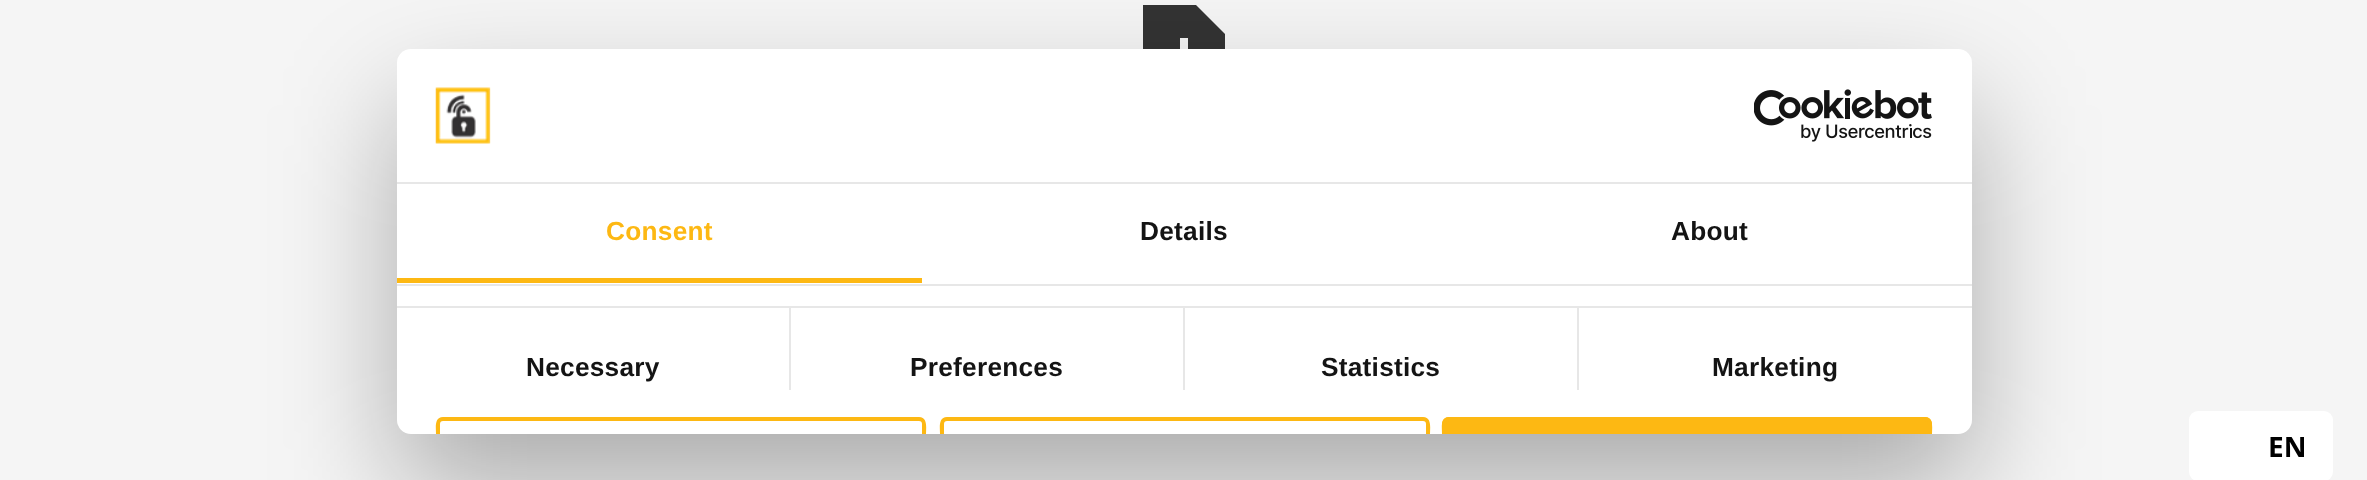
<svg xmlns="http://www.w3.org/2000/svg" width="2367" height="480">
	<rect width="100%" height="100%" fill="#F5F5F5" />
	<path d="M1143 5H1196L1225 34V108H1143ZM1180 38H1188V65H1180ZM1180 74H1188V82H1180Z" fill="#333333" fill-rule="evenodd" />
	<rect x="397" y="105" width="1575" height="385" rx="14" fill="#000000" fill-opacity="0.3" filter="blur(59.5px)" />
	<rect x="397" y="49" width="1575" height="385" rx="14" fill="#FFFFFF" />
	<rect x="397" y="182" width="1575" height="2" fill="#E7E7E7" />
	<image x="435" y="87" width="56" height="57" href="assets/img1.png" />
	<image x="1754" y="89" width="178" height="53" href="assets/img2.png" />
	<rect x="397" y="284" width="1575" height="2" fill="#E7E7E7" />
	<rect x="397" y="278" width="525" height="5" fill="#FDB813" />
	<text x="606" y="240" font-family="Liberation Sans" font-size="26.25" font-weight="700" letter-spacing="0.25" fill="#FDB813">Consent</text>
	<g font-family="Liberation Sans" font-size="26.25" font-weight="700" letter-spacing="0.25" fill="#141414">
		<text x="1140" y="240">Details</text>
		<text x="1671" y="240">About</text>
	</g>
	<rect x="397" y="306" width="1575" height="2" fill="#E7E7E7" />
	<rect x="789" y="308" width="2" height="82" fill="#E7E7E7" />
	<text x="526" y="376" font-family="Liberation Sans" font-size="26.25" font-weight="700" letter-spacing="0.25" fill="#141414">Necessary</text>
	<rect x="1183" y="308" width="2" height="82" fill="#E7E7E7" />
	<text x="910" y="376" font-family="Liberation Sans" font-size="26.25" font-weight="700" letter-spacing="0.25" fill="#141414">Preferences</text>
	<rect x="1577" y="308" width="2" height="82" fill="#E7E7E7" />
	<g font-family="Liberation Sans" font-size="26.25" font-weight="700" letter-spacing="0.25" fill="#141414">
		<text x="1321" y="376">Statistics</text>
		<text x="1712" y="376">Marketing</text>
	</g>
	<path d="M443 417C434 417 436 428 436 434H440V424C440 422 441 421 443 421H919C921 421 922 422 922 424V434H926C926 428 928 417 919 417Z" fill="#FDB813" />
	<path d="M947 417C938 417 940 428 940 434H944V424C944 422 945 421 947 421H1423C1425 421 1426 422 1426 424V434H1430C1430 428 1432 417 1423 417Z" fill="#FDB813" />
	<path d="M1449 417H1925C1929 417 1932 420 1932 424V434H1442V424C1442 420 1445 417 1449 417Z" fill="#FDB813" />
	<path d="M1449 417C1440 417 1442 428 1442 434H1446V424C1446 422 1447 421 1449 421H1925C1927 421 1928 422 1928 424V434H1932C1932 428 1934 417 1925 417Z" fill="#FDB813" />
	<rect x="2189" y="411" width="144" height="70" rx="9" fill="#FFFFFF" />
	<text x="2268" y="457" font-family="Noto Sans" font-size="28" font-weight="700" fill="#000000">EN</text>
</svg>
